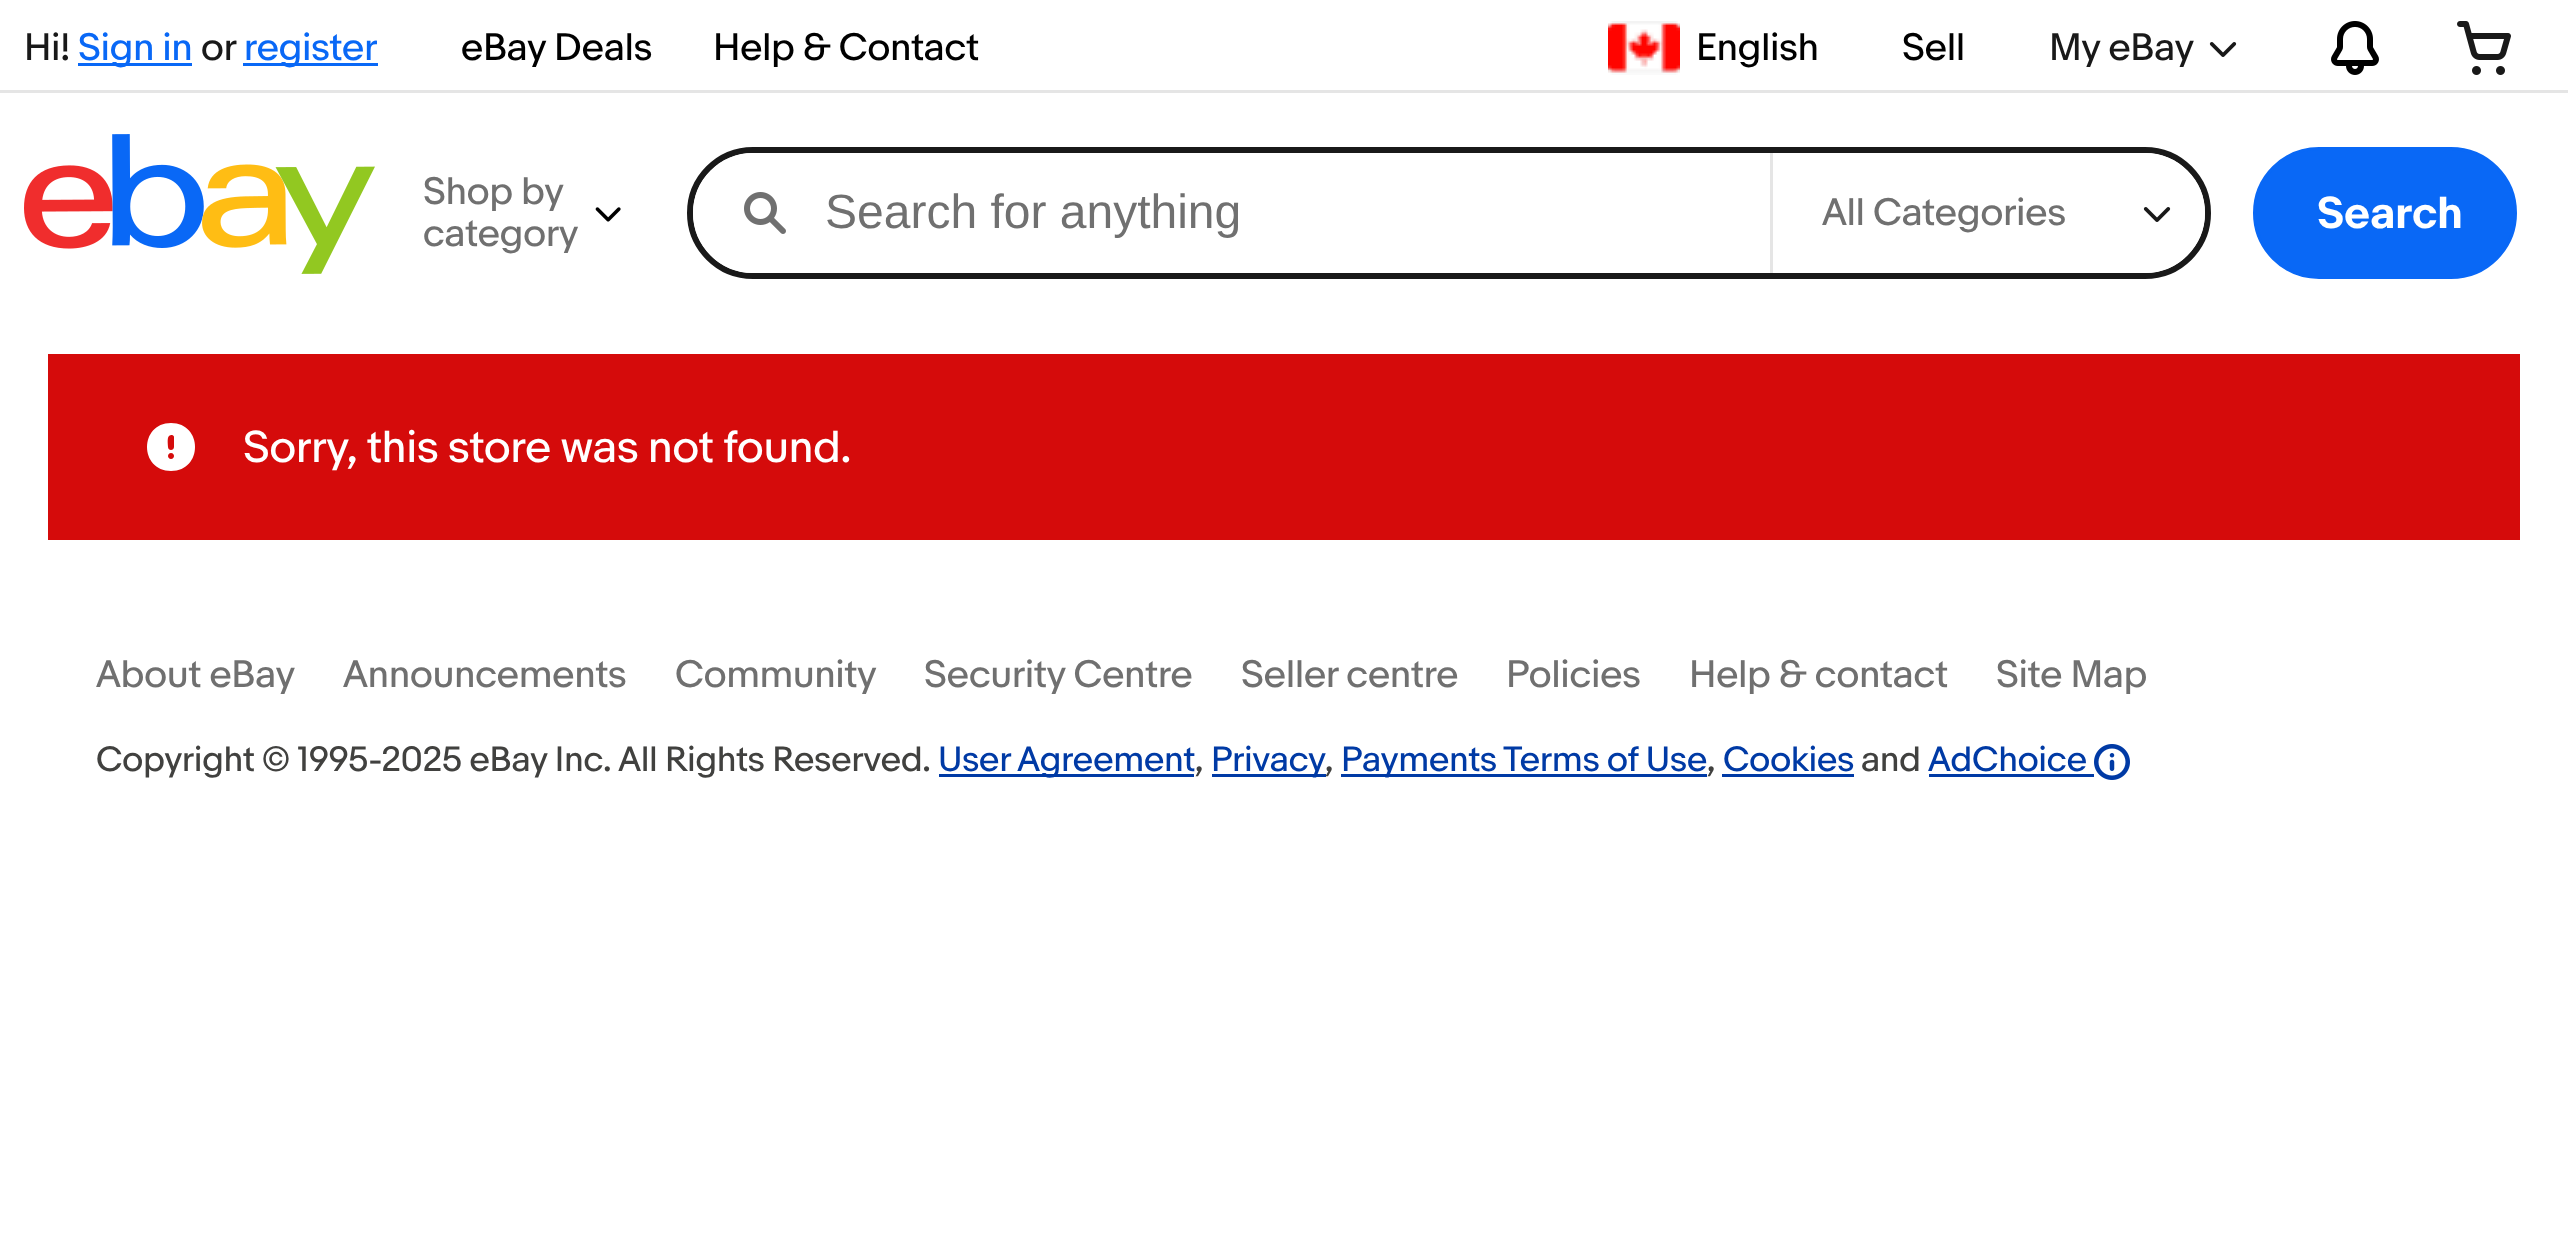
<svg xmlns="http://www.w3.org/2000/svg" width="2568" height="1248">
	<rect width="100%" height="100%" fill="#FFFFFF" />
	<text x="24" y="60" font-family="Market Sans" font-size="36" fill="#191919">Hi!</text>
	<rect x="78" y="63" width="114" height="3" fill="#0968F6" />
	<text x="78" y="60" font-family="Market Sans" font-size="36" fill="#0968F6">Sign in</text>
	<text x="201" y="60" font-family="Market Sans" font-size="36" fill="#191919">or</text>
	<rect x="243" y="63" width="135" height="3" fill="#0968F6" />
	<text x="244" y="60" font-family="Market Sans" font-size="36" fill="#0968F6">register</text>
	<g font-family="Market Sans" font-size="36" fill="#000000">
		<text x="461" y="60">eBay Deals</text>
		<text x="713" y="60">Help &amp; Contact</text>
	</g>
	<image x="1608" y="21" width="72" height="54" href="assets/img1.png" />
	<g font-family="Market Sans" font-size="36" fill="#000000">
		<text x="1696" y="60">English</text>
		<text x="1902" y="60">Sell</text>
	</g>
	<text x="2049" y="60" font-family="Market Sans" font-size="36" fill="#191919">My eBay</text>
	<image x="2209" y="42" width="28" height="15" href="assets/img2.png" />
	<image x="2331" y="21" width="48" height="54" href="assets/img3.png" />
	<image x="2457" y="21" width="54" height="54" href="assets/img4.png" />
	<image x="24" y="134" width="351" height="140" href="assets/img5.png" />
	<g font-family="Market Sans" font-size="36" fill="#707070">
		<text x="423" y="204">Shop by</text>
		<text x="423" y="246">category</text>
	</g>
	<image x="595" y="207" width="26" height="15" href="assets/img6.png" />
	<rect x="690" y="150" width="1518" height="126" rx="63" fill="none" stroke="#191919" stroke-width="6" />
	<rect x="1770" y="153" width="3" height="120" fill="#E5E5E5" />
	<path d="M753 153H1770V273H753C720 273 693 246 693 213C693 180 720 153 753 153Z" fill="#FFFFFF" />
	<image x="744" y="192" width="42" height="42" href="assets/img7.png" />
	<text x="825" y="228" font-family="Liberation Sans" font-size="48" fill="#707070">Search for anything</text>
	<path d="M1773 153H2145C2178 153 2205 180 2205 213C2205 246 2178 273 2145 273H1773Z" fill="#FFFFFF" />
	<image x="2143" y="207" width="28" height="15" href="assets/img2.png" />
	<text x="1822" y="225" font-family="Market Sans" font-size="36" fill="#707070">All Categories</text>
	<rect x="2254.5" y="148.5" width="261" height="129" rx="64.5" fill="#0968F6" stroke="#0968F6" stroke-width="3" />
	<text x="2317" y="228" font-family="Market Sans" font-size="42" font-weight="700" fill="#FFFFFF">Search</text>
	<rect x="0" y="90" width="2568" height="3" fill="#E5E5E5" />
	<rect x="48" y="354" width="2472" height="186" fill="#D50B0B" />
	<path d="M171 423C139 423 139 471 171 471C203 471 203 423 171 423ZM171 459C167 459 167 453 171 453C175 453 175 459 171 459ZM174 447C174 451 168 451 168 447C168 444 166 434 172 435C173 435 174 436 174 437Z" fill="#FFFFFF" />
	<text x="243" y="462" font-family="Market Sans" font-size="42" fill="#FFFFFF">Sorry, this store was not found.</text>
	<g font-family="Market Sans" font-size="36" fill="#707070">
		<text x="96" y="687">About eBay</text>
		<text x="343" y="687">Announcements</text>
		<text x="675" y="687">Community</text>
		<text x="924" y="687">Security Centre</text>
		<text x="1241" y="687">Seller centre</text>
		<text x="1506" y="687">Policies</text>
		<text x="1689" y="687">Help &amp; contact</text>
		<text x="1996" y="687">Site Map</text>
	</g>
	<text x="96" y="771" font-family="Market Sans" font-size="33" fill="#41413F">Copyright © 1995-2025 eBay Inc. All Rights Reserved.</text>
	<rect x="939" y="774" width="255" height="3" fill="#003AA5" />
	<text x="938" y="771" font-family="Market Sans" font-size="33" fill="#003AA5">User Agreement</text>
	<text x="1195" y="771" font-family="Market Sans" font-size="33" fill="#41413F">,</text>
	<rect x="1212" y="774" width="114" height="3" fill="#003AA5" />
	<text x="1211" y="771" font-family="Market Sans" font-size="33" fill="#003AA5">Privacy</text>
	<text x="1325" y="771" font-family="Market Sans" font-size="33" fill="#41413F">,</text>
	<rect x="1341" y="774" width="366" height="3" fill="#003AA5" />
	<text x="1341" y="771" font-family="Market Sans" font-size="33" fill="#003AA5">Payments Terms of Use</text>
	<text x="1707" y="771" font-family="Market Sans" font-size="33" fill="#41413F">,</text>
	<text x="1723" y="771" font-family="Market Sans" font-size="33" fill="#003AA5">Cookies</text>
	<rect x="1722" y="774" width="132" height="3" fill="#003AA5" />
	<text x="1861" y="771" font-family="Market Sans" font-size="33" fill="#41413F">and</text>
	<text x="1928" y="771" font-family="Market Sans" font-size="33" fill="#003AA5">AdChoice</text>
	<rect x="1929" y="774" width="165" height="3" fill="#003AA5" />
	<image x="2094" y="744" width="36" height="36" href="assets/img8.png" />
</svg>
